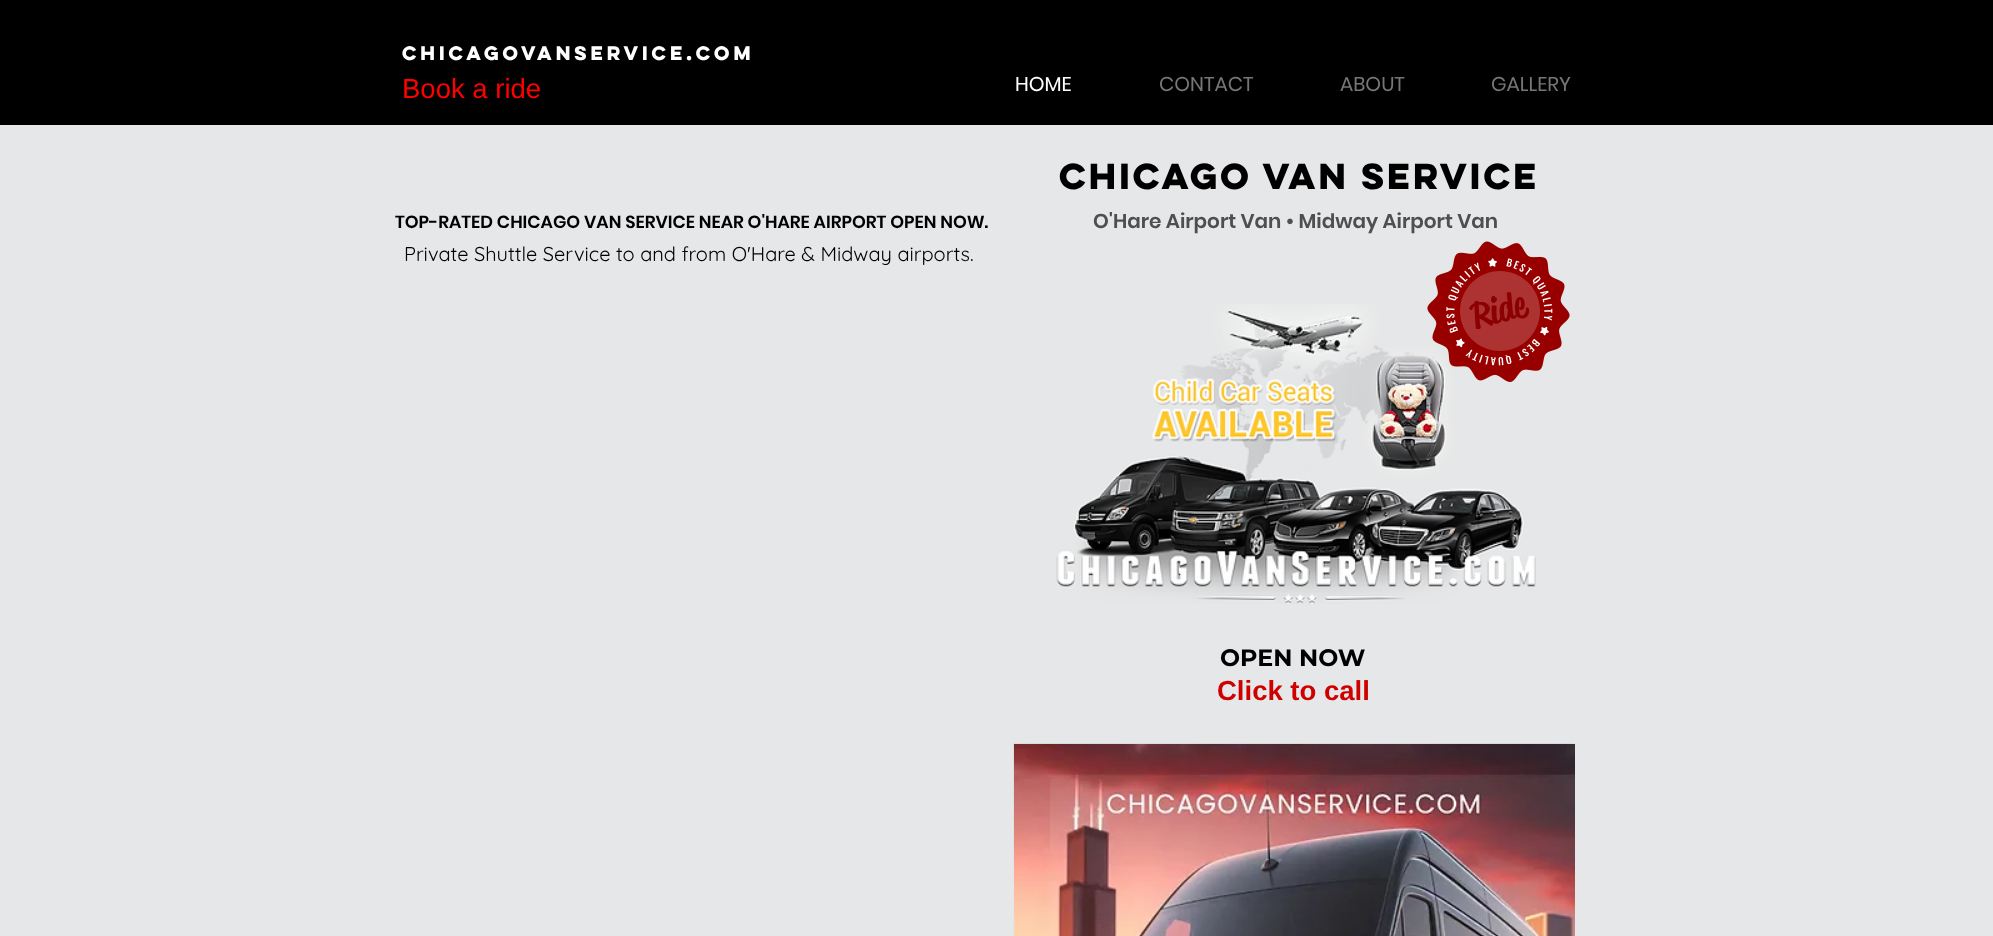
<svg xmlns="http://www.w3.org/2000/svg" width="1993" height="936">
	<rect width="100%" height="100%" fill="#E6E7E8" />
	<rect x="0" y="0" width="1993" height="125" fill="#000000" />
	<text x="402" y="60" font-family="'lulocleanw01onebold'" font-size="17.5" font-weight="700" fill="#FFFFFF">ChicagoVanService.com</text>
	<text x="402" y="98" font-family="Liberation Sans" font-size="27.5" fill="#FF0000">Book a ride</text>
	<text x="1015" y="91" font-family="Poppins" font-size="20" fill="#FFFFFF">HOME</text>
	<g font-family="Poppins" font-size="20" fill="#777575">
		<text x="1159" y="91">CONTACT</text>
		<text x="1340" y="91">ABOUT</text>
		<text x="1491" y="91">GALLERY</text>
	</g>
	<text x="1059" y="189" font-family="'lulocleanw01onebold'" font-size="32.5" font-weight="700" letter-spacing="-4.25" fill="#000000">Chicago Van Service</text>
	<text x="395" y="228" font-family="Poppins" font-size="17.5" font-weight="600" fill="#000000">TOP-RATED CHICAGO VAN SERVICE NEAR O'HARE AIRPORT OPEN NOW.</text>
	<text x="404" y="261" font-family="Quicksand" font-size="20" fill="#000000">Private Shuttle Service to and from O'Hare &amp; Midway airports.</text>
	<text x="1093" y="228" font-family="Poppins" font-size="20" font-weight="600" fill="#4F4F4F">O'Hare Airport Van • Midway Airport Van</text>
	<image x="1056" y="304" width="480" height="300" href="assets/img2.png" />
	<path d="M1560 312C1560 346 1532 374 1498 374C1464 374 1436 346 1436 312C1436 278 1464 250 1498 250C1532 250 1560 278 1560 312Z" fill="#FFFFFF" />
	<image x="1427" y="241" width="143" height="141" href="assets/img1.png" />
	<path d="M1540 311C1540 333 1522 351 1500 351C1478 351 1460 333 1460 311C1460 289 1478 271 1500 271C1522 271 1540 289 1540 311Z" fill="#AD3333" />
	<text x="1475" y="328" transform="rotate(-14.6 1475 328)" font-family="'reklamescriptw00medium'" font-size="35" font-weight="500" fill="#8B0000">Ride</text>
	<text x="1220" y="666" font-family="Montserrat" font-size="23.75" font-weight="700" fill="#000000">OPEN NOW</text>
	<text x="1217" y="700" font-family="Liberation Sans" font-size="27.5" font-weight="700" fill="#CF0000">Click to call</text>
	<image x="1013" y="743" width="562" height="193" href="assets/img3.png" />
</svg>
